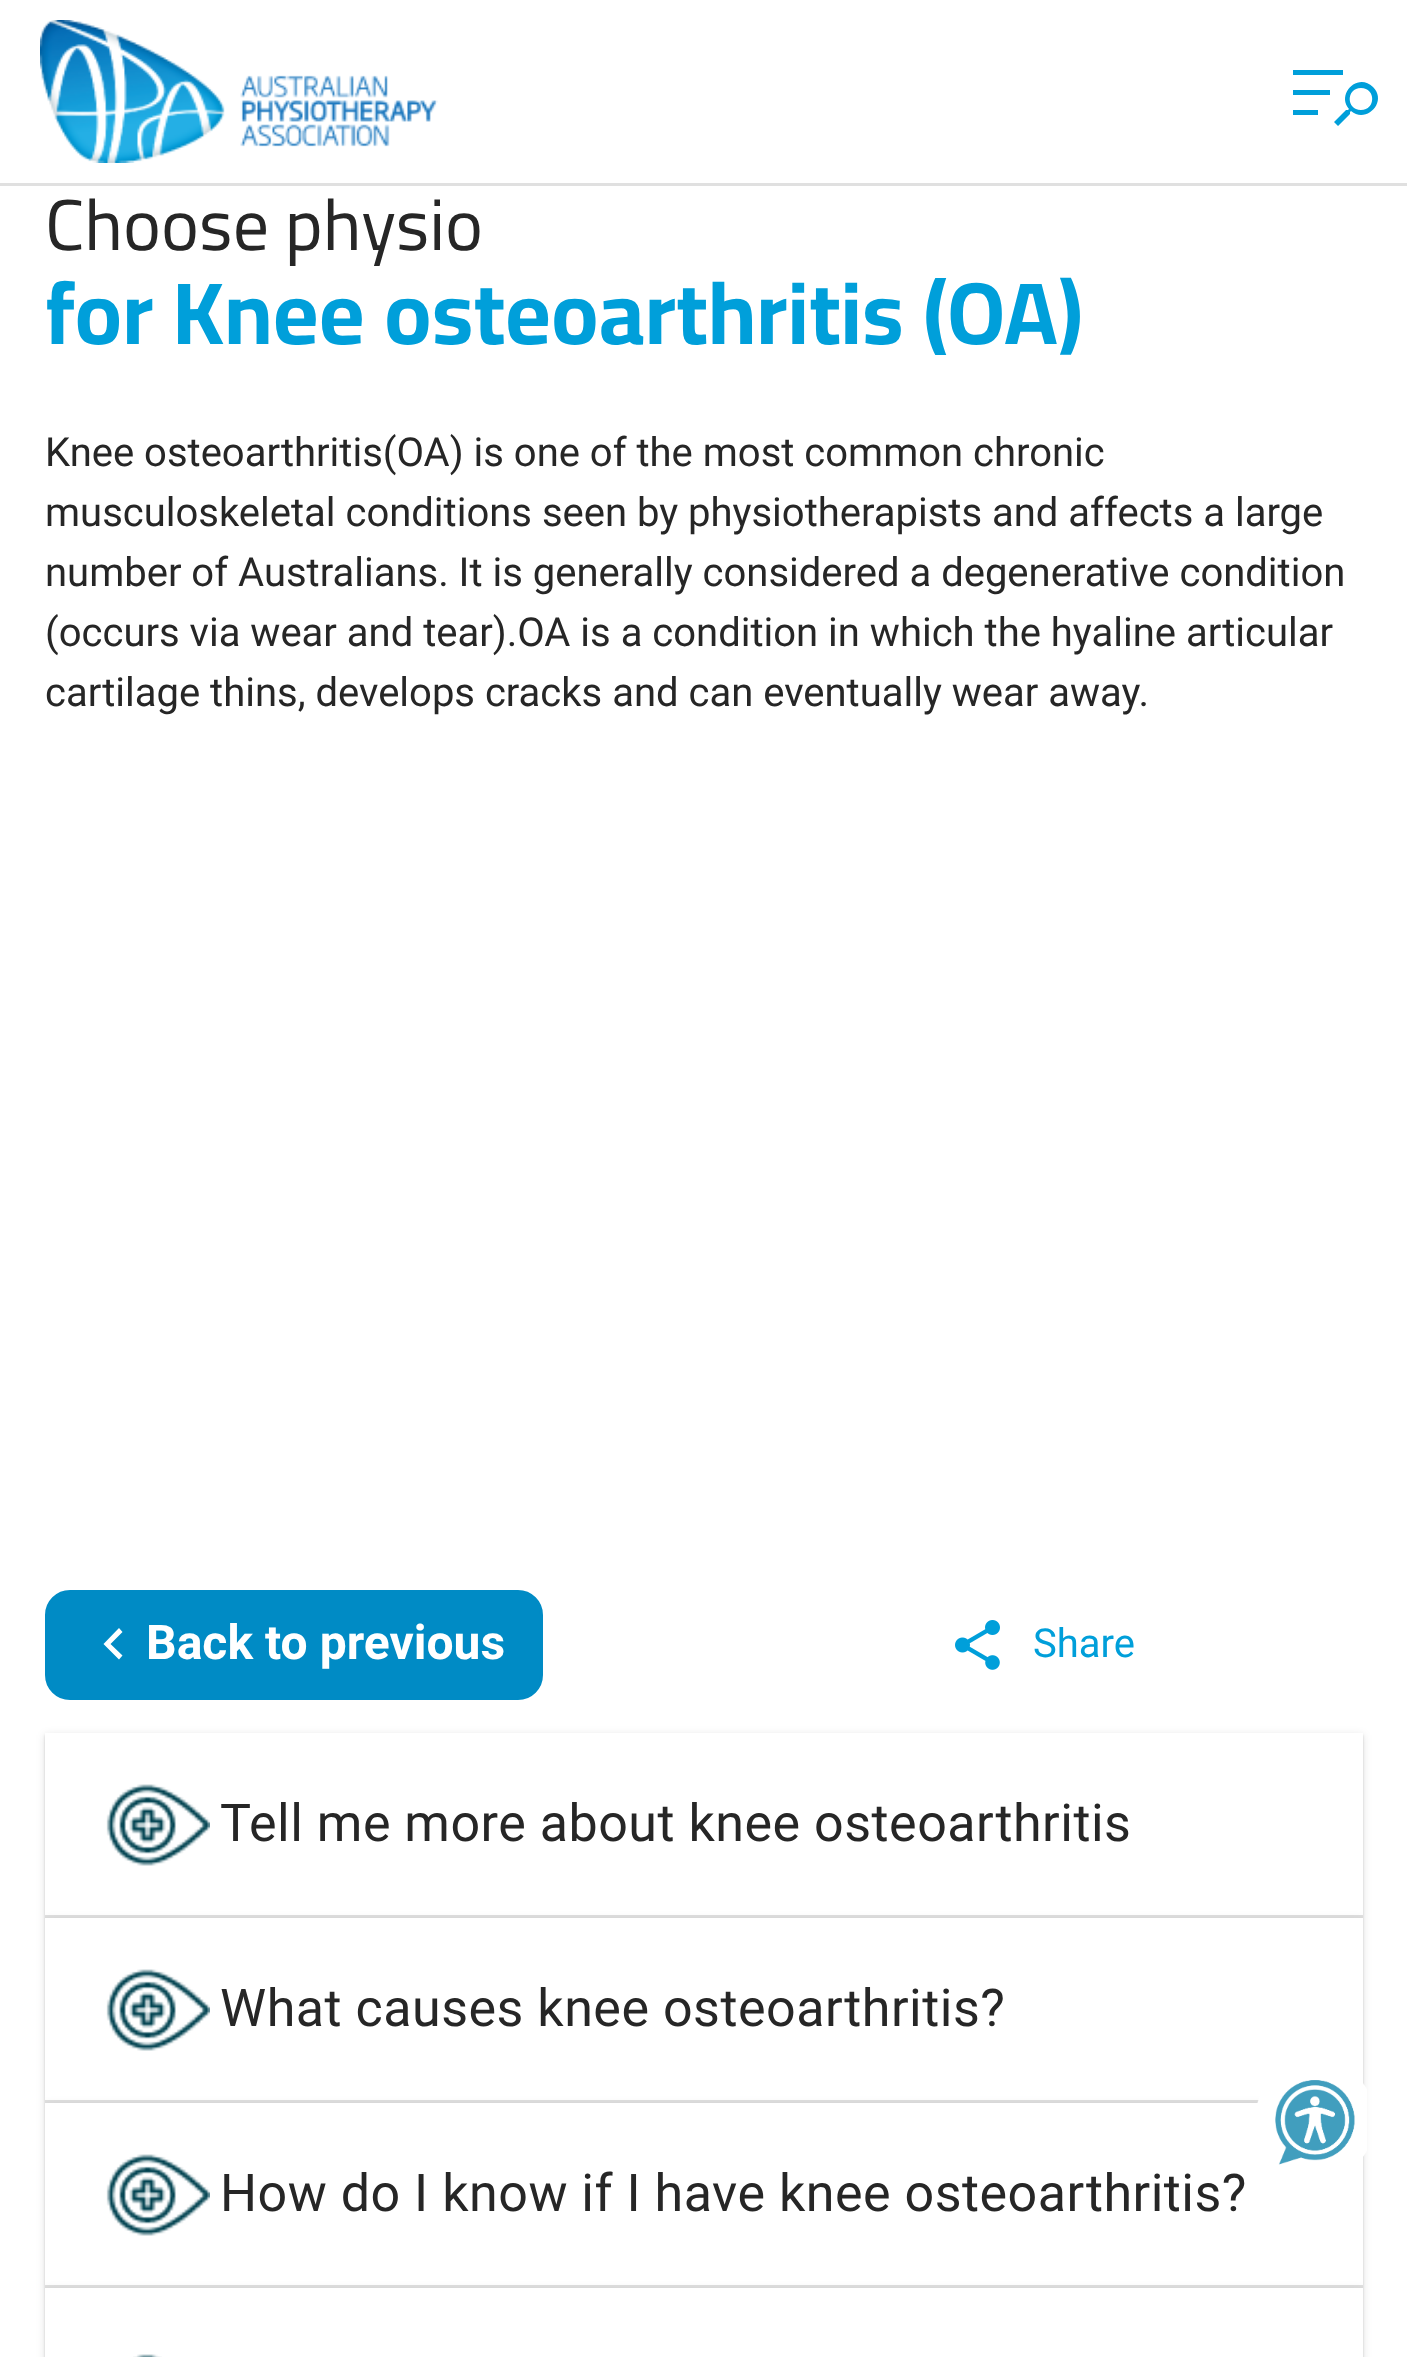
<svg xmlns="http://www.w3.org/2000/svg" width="1407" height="2357">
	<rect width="100%" height="100%" fill="#FFFFFF" />
	<rect x="0" y="183" width="1407" height="3" fill="#E0E0E0" />
	<image x="40" y="20" width="398" height="143" href="assets/img1.png" />
	<rect x="1293" y="70" width="50" height="5" fill="#009FDA" />
	<rect x="1293" y="90" width="37" height="5" fill="#009FDA" />
	<path d="M1346 110H1348L1349 109C1336 94 1358 72 1373 87C1388 102 1366 124 1351 111L1350 112V114L1338 126L1334 122ZM1361 110C1376 110 1376 88 1361 88C1346 88 1346 110 1361 110Z" fill="#009FDA" />
	<rect x="1293" y="110" width="25" height="5" fill="#009FDA" />
	<text x="45" y="250" font-family="Cairo" font-size="72" fill="#262626">Choose physio</text>
	<text x="45" y="344" font-family="Cairo" font-size="88" font-weight="700" fill="#009FDA">for Knee osteoarthritis (OA)</text>
	<g font-family="Roboto" font-size="40" fill="#262626">
		<text x="45" y="466">Knee osteoarthritis(OA) is one of the most common chronic</text>
		<text x="45" y="526">musculoskeletal conditions seen by physiotherapists and affects a large</text>
		<text x="45" y="586">number of Australians. It is generally considered a degenerative condition</text>
		<text x="45" y="646">(occurs via wear and tear).OA is a condition in which the hyaline articular</text>
		<text x="45" y="706">cartilage thins, develops cracks and can eventually wear away.</text>
	</g>
	<rect x="46.5" y="1591.5" width="495" height="107" rx="23.5" fill="#008BC5" stroke="#008BC5" stroke-width="3" />
	<path d="M122.5 1632L119 1628L103.5 1644L119 1659.5L122.5 1655.5L110.5 1644Z" fill="#FFFFFF" />
	<text x="146" y="1659" font-family="Roboto" font-size="48" font-weight="700" fill="#FFFFFF">Back to previous</text>
	<image x="955" y="1620" width="45" height="50" href="assets/img2.png" />
	<text x="1033" y="1657" font-family="Roboto" font-size="40" fill="#009FDA">Share</text>
	<rect x="45" y="1735" width="1318" height="185" fill="#000000" fill-opacity="0.12" filter="blur(4px)" />
	<rect x="45" y="1735" width="1318" height="185" fill="#000000" fill-opacity="0.14" filter="blur(1px)" />
	<rect x="45" y="1733" width="1318" height="185" fill="#FFFFFF" />
	<image x="106" y="1784" width="104" height="82" href="assets/img3.png" />
	<text x="220" y="1841" font-family="Roboto" font-size="52" letter-spacing="0.5" fill="#262626">Tell me more about knee osteoarthritis</text>
	<rect x="45" y="1920" width="1318" height="185" fill="#000000" fill-opacity="0.12" filter="blur(4px)" />
	<rect x="45" y="1920" width="1318" height="185" fill="#000000" fill-opacity="0.14" filter="blur(1px)" />
	<rect x="45" y="1918" width="1318" height="185" fill="#FFFFFF" />
	<rect x="45" y="1915" width="1318" height="3" fill="#000000" fill-opacity="0.12" />
	<image x="106" y="1969" width="104" height="82" href="assets/img3.png" />
	<text x="220" y="2026" font-family="Roboto" font-size="52" letter-spacing="0.5" fill="#262626">What causes knee osteoarthritis?</text>
	<rect x="45" y="2105" width="1318" height="185" fill="#000000" fill-opacity="0.12" filter="blur(4px)" />
	<rect x="45" y="2105" width="1318" height="185" fill="#000000" fill-opacity="0.14" filter="blur(1px)" />
	<rect x="45" y="2103" width="1318" height="185" fill="#FFFFFF" />
	<rect x="45" y="2100" width="1214" height="3" fill="#000000" fill-opacity="0.12" />
	<image x="106" y="2154" width="104" height="82" href="assets/img3.png" />
	<text x="220" y="2211" font-family="Roboto" font-size="52" letter-spacing="0.5" fill="#262626">How do I know if I have knee osteoarthritis?</text>
	<rect x="45" y="2290" width="1318" height="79" fill="#000000" fill-opacity="0.12" filter="blur(4px)" />
	<rect x="45" y="2290" width="1318" height="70" fill="#000000" fill-opacity="0.14" filter="blur(1px)" />
	<rect x="45" y="2288" width="1318" height="69" fill="#FFFFFF" />
	<rect x="45" y="2285" width="1318" height="3" fill="#000000" fill-opacity="0.12" />
	<image x="133" y="2354" width="29" height="3" href="assets/img4.png" />
	<image x="1257" y="2080" width="110" height="85" href="assets/img5.png" />
</svg>
